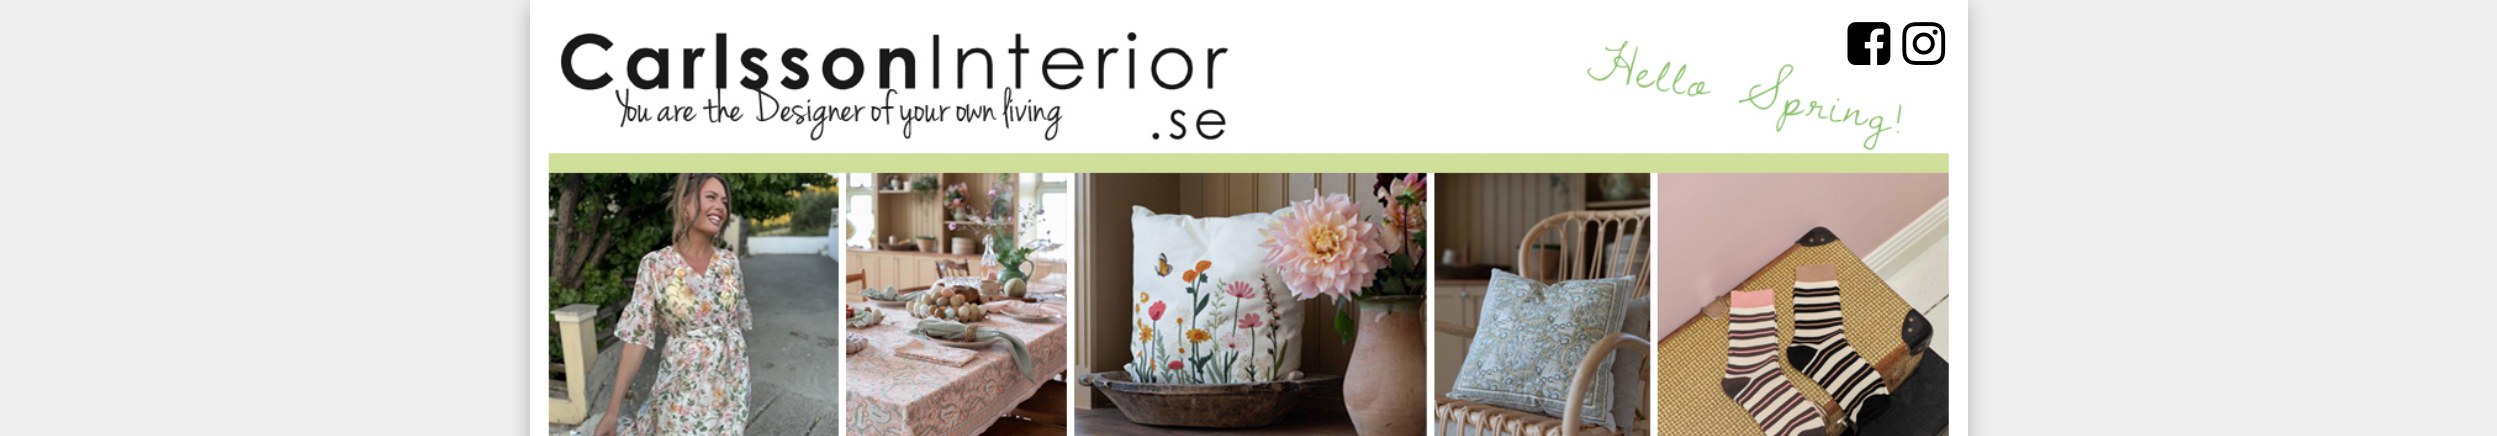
<svg xmlns="http://www.w3.org/2000/svg" width="2497" height="436">
	<rect width="100%" height="100%" fill="#EEEEEE" />
	<rect x="530" y="6" width="1438" height="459" fill="#000000" fill-opacity="0.25" filter="blur(9.5px)" />
	<rect x="530" y="0" width="1438" height="436" fill="#FFFFFF" />
	<image x="548" y="31" width="1401" height="405" href="assets/img3.png" />
	<image x="1847" y="22" width="44" height="43" href="assets/img1.png" />
	<image x="1902" y="22" width="44" height="43" href="assets/img2.png" />
</svg>
